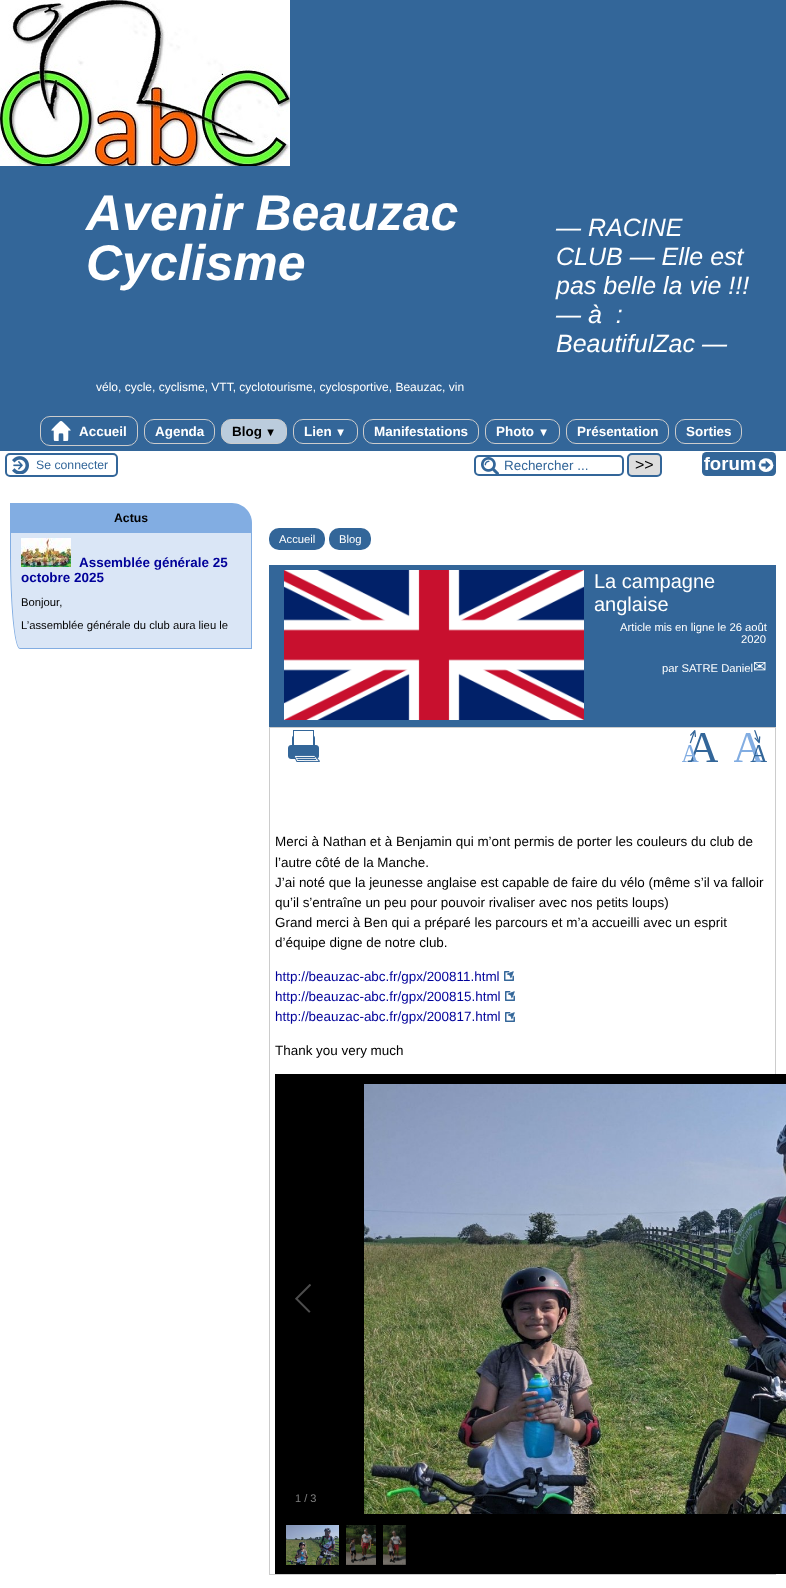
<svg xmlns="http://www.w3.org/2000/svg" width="786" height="1588">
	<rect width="100%" height="100%" fill="#FFFFFF" />
	<rect x="0" y="0" width="786" height="451" fill="#336699" />
	<image x="0" y="0" width="290" height="166" href="assets/img1.png" />
	<g font-family="Liberation Sans" font-size="50" font-weight="700" font-style="italic" fill="#FFFFFF">
		<text x="86" y="230">Avenir Beauzac</text>
		<text x="86" y="280">Cyclisme</text>
	</g>
	<g font-family="Liberation Sans" font-size="25" font-style="italic" fill="#FFFFFF">
		<text x="556" y="236">— RACINE</text>
		<text x="556" y="265">CLUB — Elle est</text>
		<text x="556" y="294">pas belle la vie !!!</text>
		<text x="556" y="323" xml:space="preserve">— à  :</text>
		<text x="556" y="352">BeautifulZac —</text>
	</g>
	<text x="96" y="391" font-family="Liberation Sans" font-size="12" fill="#FFFFFF">vélo, cycle, cyclisme, VTT, cyclotourisme, cyclosportive, Beauzac, vin</text>
	<rect x="40.5" y="416.5" width="97" height="29" rx="9.5" fill="none" stroke="#CCCCCC" />
	<image x="51" y="421" width="20" height="20" href="assets/img2.png" />
	<text x="79" y="436" font-family="Liberation Sans" font-size="13.45" font-weight="700" fill="#FFFFFF">Accueil</text>
	<rect x="144.5" y="419.5" width="70" height="24" rx="9.5" fill="none" stroke="#CCCCCC" />
	<text x="155" y="436" font-family="Liberation Sans" font-size="13.45" font-weight="700" fill="#FFFFFF">Agenda</text>
	<rect x="221.5" y="419.5" width="65" height="24" rx="9.5" fill="#BBCCDD" stroke="#CCCCCC" />
	<text x="232" y="436" font-family="Liberation Sans" font-size="13.45" font-weight="700" fill="#000000">Blog</text>
	<text x="265" y="436" font-family="Liberation Sans" font-size="11.25" font-weight="700" fill="#000000">▼</text>
	<rect x="293.5" y="419.5" width="64" height="24" rx="9.5" fill="none" stroke="#CCCCCC" />
	<text x="304" y="436" font-family="Liberation Sans" font-size="13.45" font-weight="700" fill="#FFFFFF">Lien</text>
	<text x="335" y="436" font-family="Liberation Sans" font-size="11.25" font-weight="700" fill="#FFFFFF">▼</text>
	<rect x="363.5" y="419.5" width="115" height="24" rx="9.5" fill="none" stroke="#CCCCCC" />
	<text x="374" y="436" font-family="Liberation Sans" font-size="13.45" font-weight="700" fill="#FFFFFF">Manifestations</text>
	<rect x="485.5" y="419.5" width="74" height="24" rx="9.5" fill="none" stroke="#CCCCCC" />
	<text x="496" y="436" font-family="Liberation Sans" font-size="13.45" font-weight="700" fill="#FFFFFF">Photo</text>
	<text x="538" y="436" font-family="Liberation Sans" font-size="11.25" font-weight="700" fill="#FFFFFF">▼</text>
	<rect x="566.5" y="419.5" width="102" height="24" rx="9.5" fill="none" stroke="#CCCCCC" />
	<text x="577" y="436" font-family="Liberation Sans" font-size="13.45" font-weight="700" fill="#FFFFFF">Présentation</text>
	<rect x="675.5" y="419.5" width="66" height="24" rx="9.5" fill="none" stroke="#CCCCCC" />
	<text x="686" y="436" font-family="Liberation Sans" font-size="13.45" font-weight="700" fill="#FFFFFF">Sorties</text>
	<image x="12" y="456" width="17" height="18" href="assets/img3.png" />
	<rect x="6" y="454" width="111" height="22" rx="4" fill="none" stroke="#336699" stroke-width="2" />
	<text x="36" y="469" font-family="Liberation Sans" font-size="12.25" fill="#336699">Se connecter</text>
	<image x="481" y="457" width="18" height="17" href="assets/img4.png" />
	<rect x="475" y="456" width="148" height="19" rx="4" fill="none" stroke="#336699" stroke-width="2" />
	<text x="504" y="470" font-family="Liberation Sans" font-size="13.45" fill="#336699">Rechercher ...</text>
	<rect x="628" y="454" width="33" height="22" rx="4" fill="#DDDDDD" stroke="#336699" stroke-width="2" />
	<text x="635" y="470" font-family="Liberation Sans" font-size="16" fill="#000000">&gt;&gt;</text>
	<image x="702" y="452" width="74" height="24" href="assets/img5.png" />
	<path d="M10 503H232C243 503 252 512 252 523V533H10Z" fill="#82ADE2" />
	<text x="114" y="522" font-family="Liberation Sans" font-size="12.25" font-weight="700" fill="#000000">Actus</text>
	<path d="M11 533H251V648H20C15 648 11 604 11 549Z" fill="#DAE6F6" />
	<path d="M10 533H252V649H20C14 649 10 604 10 549ZM11 533H251V648H20C15 648 11 604 11 549Z" fill="#82ADE2" fill-rule="evenodd" />
	<image x="21" y="538" width="50" height="29" href="assets/img6.png" />
	<g font-family="Liberation Sans" font-size="13.45" font-weight="700" fill="#000099">
		<text x="79" y="567">Assemblée générale 25</text>
		<text x="21" y="582">octobre 2025</text>
	</g>
	<g font-family="Liberation Sans" font-size="11.25" fill="#000000">
		<text x="21" y="606">Bonjour,</text>
		<text x="21" y="629">L’assemblée générale du club aura lieu le</text>
	</g>
	<rect x="269" y="528" width="56" height="22" rx="10" fill="#336699" />
	<text x="279" y="543" font-family="Liberation Sans" font-size="11.25" fill="#FFFFFF">Accueil</text>
	<rect x="329" y="528" width="42" height="22" rx="10" fill="#336699" />
	<text x="339" y="543" font-family="Liberation Sans" font-size="11.25" fill="#FFFFFF">Blog</text>
	<rect x="269" y="565" width="507" height="162" fill="#336699" />
	<image x="284" y="570" width="300" height="150" href="assets/img7.png" />
	<g font-family="Liberation Sans" font-size="20" fill="#FFFFFF">
		<text x="594" y="588">La campagne</text>
		<text x="594" y="611">anglaise</text>
	</g>
	<g font-family="Liberation Sans" font-size="11.25" fill="#FFFFFF">
		<text x="620" y="631">Article mis en ligne le 26 août</text>
		<text x="741" y="643">2020</text>
		<text x="662" y="672">par SATRE Daniel</text>
	</g>
	<text x="753" y="672" font-family="DejaVu Sans" font-size="16" fill="#FFFFFF">✉</text>
	<rect x="269.5" y="727.5" width="506" height="847" fill="none" stroke="#CCCCCC" />
	<image x="288" y="730" width="32" height="32" href="assets/img8.png" />
	<image x="682" y="730" width="36" height="32" href="assets/img9.png" />
	<image x="734" y="730" width="33" height="32" href="assets/img10.png" />
	<g font-family="Liberation Sans" font-size="13.45" fill="#000000">
		<text x="275" y="846">Merci à Nathan et à Benjamin qui m’ont permis de porter les couleurs du club de</text>
		<text x="275" y="867">l’autre côté de la Manche.</text>
		<text x="275" y="887">J’ai noté que la jeunesse anglaise est capable de faire du vélo (même s’il va falloir</text>
		<text x="275" y="907">qu’il s’entraîne un peu pour pouvoir rivaliser avec nos petits loups)</text>
		<text x="275" y="927">Grand merci à Ben qui a préparé les parcours et m’a accueilli avec un esprit</text>
		<text x="275" y="947">d’équipe digne de notre club.</text>
	</g>
	<text x="275" y="981" font-family="Liberation Sans" font-size="13.45" fill="#000099">http://beauzac-abc.fr/gpx/200811.html</text>
	<image x="504" y="971" width="10" height="10" href="assets/img11.png" />
	<text x="275" y="1001" font-family="Liberation Sans" font-size="13.45" fill="#000099">http://beauzac-abc.fr/gpx/200815.html</text>
	<image x="505" y="991" width="10" height="10" href="assets/img11.png" />
	<text x="275" y="1021" font-family="Liberation Sans" font-size="13.45" fill="#000099">http://beauzac-abc.fr/gpx/200817.html</text>
	<image x="505" y="1012" width="10" height="10" href="assets/img11.png" />
	<text x="275" y="1055" font-family="Liberation Sans" font-size="13.45" fill="#000000">Thank you very much</text>
	<rect x="275" y="1074" width="511" height="500" fill="#000000" />
	<image x="295" y="1284" width="16" height="29" href="assets/img12.png" />
	<image x="364" y="1084" width="422" height="430" href="assets/img13.png" />
	<text x="295" y="1502" font-family="Liberation Sans" font-size="11" fill="#808080">1 / 3</text>
	<image x="286" y="1525" width="53" height="40" href="assets/img14.png" />
	<image x="346" y="1525" width="30" height="40" href="assets/img15.png" />
	<image x="383" y="1525" width="23" height="40" href="assets/img16.png" />
</svg>
